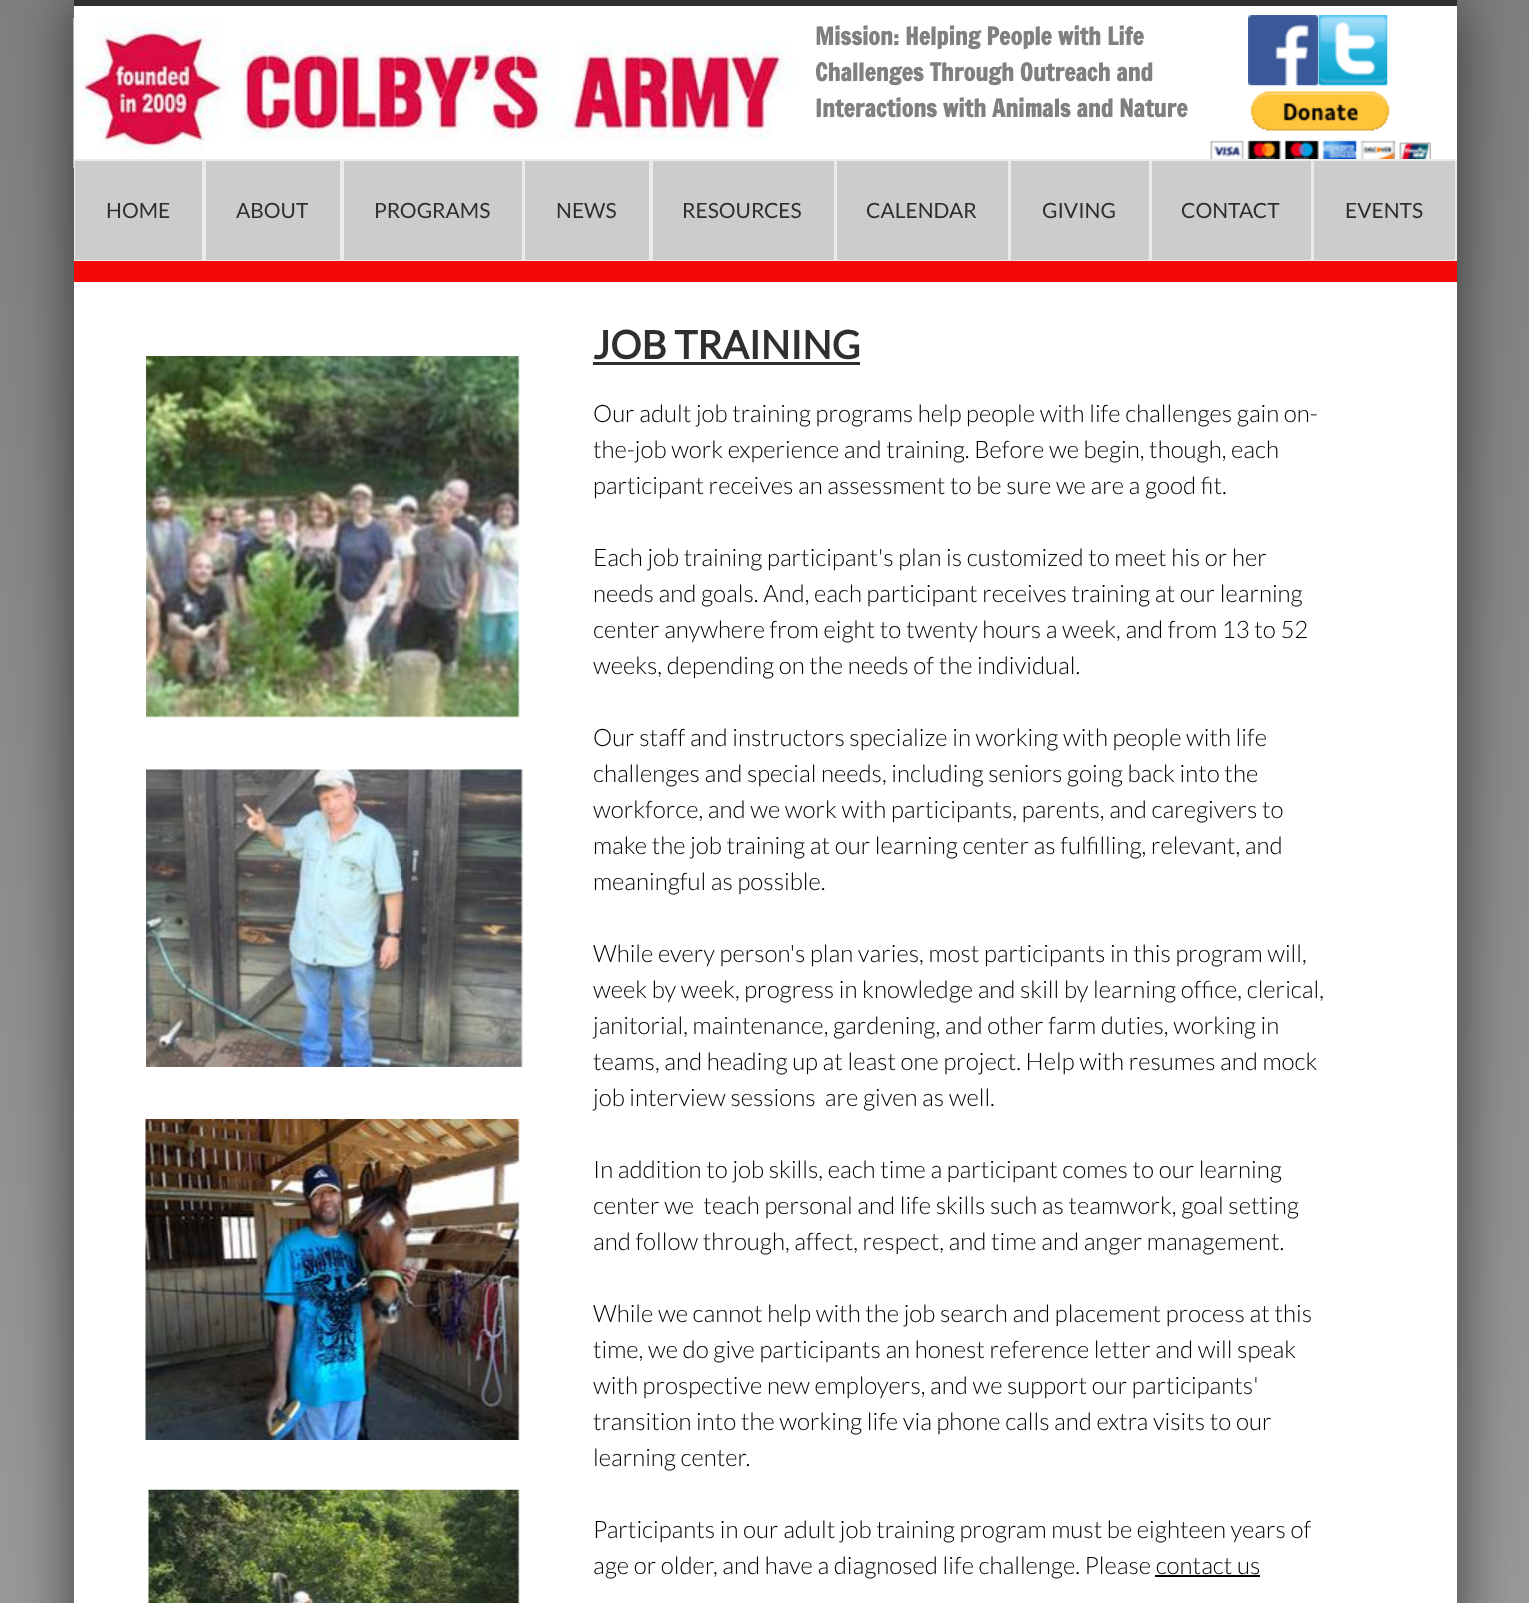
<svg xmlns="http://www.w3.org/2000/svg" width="1529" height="1603">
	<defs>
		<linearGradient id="g1" gradientUnits="userSpaceOnUse" x1="765" y1="0" x2="765" y2="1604"><stop offset="0" stop-color="#7F7F7F" /><stop offset="1" stop-color="#999999" /></linearGradient>
	</defs>
	<rect width="100%" height="100%" fill="#FFFFFF" />
	<rect x="0" y="0" width="1529" height="1603" fill="url(#g1)" />
	<rect x="74" y="0" width="1383" height="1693" fill="#000000" fill-opacity="0.6" filter="blur(30px)" />
	<rect x="74" y="6" width="1383" height="1597" fill="#FFFFFF" />
	<rect x="74" y="0" width="1383" height="6" fill="#2F2F2F" />
	<image x="73" y="18" width="720" height="150" href="assets/img1.png" />
	<g font-family="Francois One" font-size="24" font-weight="700" fill="#808080">
		<text x="815" y="45">Mission: Helping People with Life</text>
		<text x="815" y="81">Challenges Through Outreach and</text>
		<text x="815" y="117">Interactions with Animals and Nature</text>
	</g>
	<image x="1248" y="15" width="71" height="71" href="assets/img2.png" />
	<image x="1318" y="15" width="70" height="71" href="assets/img3.png" />
	<image x="1210" y="91" width="221" height="68" href="assets/img4.png" />
	<rect x="201" y="161" width="1" height="98" fill="#CCCCCC" />
	<rect x="75" y="160" width="128" height="100" fill="none" stroke="#EBEBEB" stroke-width="2" />
	<rect x="75" y="161" width="126" height="99" fill="#CCCCCC" />
	<text x="106" y="218" font-family="Lato" font-size="21" fill="#2F2F2F">HOME</text>
	<rect x="339" y="161" width="1" height="98" fill="#CCCCCC" />
	<rect x="205" y="160" width="136" height="100" fill="none" stroke="#EBEBEB" stroke-width="2" />
	<rect x="206" y="161" width="133" height="99" fill="#CCCCCC" />
	<text x="236" y="218" font-family="Lato" font-size="21" fill="#2F2F2F">ABOUT</text>
	<rect x="521" y="161" width="1" height="98" fill="#CCCCCC" />
	<rect x="343" y="160" width="180" height="100" fill="none" stroke="#EBEBEB" stroke-width="2" />
	<rect x="344" y="161" width="177" height="99" fill="#CCCCCC" />
	<text x="374" y="218" font-family="Lato" font-size="21" fill="#2F2F2F">PROGRAMS</text>
	<rect x="648" y="161" width="1" height="98" fill="#CCCCCC" />
	<rect x="525" y="160" width="125" height="100" fill="none" stroke="#EBEBEB" stroke-width="2" />
	<rect x="525" y="161" width="123" height="99" fill="#CCCCCC" />
	<text x="556" y="218" font-family="Lato" font-size="21" fill="#2F2F2F">NEWS</text>
	<rect x="833" y="161" width="1" height="98" fill="#CCCCCC" />
	<rect x="652" y="160" width="183" height="100" fill="none" stroke="#EBEBEB" stroke-width="2" />
	<rect x="653" y="161" width="180" height="99" fill="#CCCCCC" />
	<text x="682" y="218" font-family="Lato" font-size="21" fill="#2F2F2F">RESOURCES</text>
	<rect x="1007" y="161" width="1" height="98" fill="#CCCCCC" />
	<rect x="837" y="160" width="172" height="100" fill="none" stroke="#EBEBEB" stroke-width="2" />
	<rect x="837" y="161" width="170" height="99" fill="#CCCCCC" />
	<text x="866" y="218" font-family="Lato" font-size="21" fill="#2F2F2F">CALENDAR</text>
	<rect x="1148" y="161" width="1" height="98" fill="#CCCCCC" />
	<rect x="1011" y="160" width="139" height="100" fill="none" stroke="#EBEBEB" stroke-width="2" />
	<rect x="1011" y="161" width="137" height="99" fill="#CCCCCC" />
	<text x="1042" y="218" font-family="Lato" font-size="21" fill="#2F2F2F">GIVING</text>
	<rect x="1310" y="161" width="1" height="98" fill="#CCCCCC" />
	<rect x="1152" y="160" width="160" height="100" fill="none" stroke="#EBEBEB" stroke-width="2" />
	<rect x="1152" y="161" width="158" height="99" fill="#CCCCCC" />
	<text x="1181" y="218" font-family="Lato" font-size="21" fill="#2F2F2F">CONTACT</text>
	<rect x="1454" y="161" width="1" height="98" fill="#CCCCCC" />
	<rect x="1314" y="160" width="142" height="100" fill="none" stroke="#EBEBEB" stroke-width="2" />
	<rect x="1314" y="161" width="140" height="99" fill="#CCCCCC" />
	<text x="1345" y="218" font-family="Lato" font-size="21" fill="#2F2F2F">EVENTS</text>
	<rect x="74" y="261" width="1383" height="21" fill="#F40808" />
	<image x="146" y="356" width="374" height="362" href="assets/img5.png" />
	<text x="593" y="359" font-family="Lato" font-size="39" font-weight="700" fill="#2F2F2F">JOB TRAINING</text>
	<rect x="593" y="362" width="267" height="3" fill="#2F2F2F" />
	<g font-family="Lato" font-size="24" font-weight="300" fill="#000000">
		<text x="593" y="422">Our adult job training programs help people with life challenges gain on-</text>
		<text x="593" y="458">the-job work experience and training. Before we begin, though, each</text>
		<text x="593" y="494">participant receives an assessment to be sure we are a good fit.</text>
		<text x="593" y="566">Each job training participant's plan is customized to meet his or her</text>
		<text x="593" y="602">needs and goals. And, each participant receives training at our learning</text>
		<text x="593" y="638">center anywhere from eight to twenty hours a week, and from 13 to 52</text>
		<text x="593" y="674">weeks, depending on the needs of the individual.</text>
		<text x="593" y="746">Our staff and instructors specialize in working with people with life</text>
		<text x="593" y="782">challenges and special needs, including seniors going back into the</text>
		<text x="593" y="818">workforce, and we work with participants, parents, and caregivers to</text>
		<text x="593" y="854">make the job training at our learning center as fulfilling, relevant, and</text>
		<text x="593" y="890">meaningful as possible.</text>
		<text x="593" y="962">While every person's plan varies, most participants in this program will,</text>
		<text x="593" y="998">week by week, progress in knowledge and skill by learning office, clerical,</text>
		<text x="593" y="1034">janitorial, maintenance, gardening, and other farm duties, working in</text>
		<text x="593" y="1070">teams, and heading up at least one project. Help with resumes and mock</text>
		<text x="593" y="1106" xml:space="preserve">job interview sessions  are given as well.</text>
		<text x="593" y="1178">In addition to job skills, each time a participant comes to our learning</text>
		<text x="593" y="1214" xml:space="preserve">center we  teach personal and life skills such as teamwork, goal setting</text>
		<text x="593" y="1250">and follow through, affect, respect, and time and anger management.</text>
		<text x="593" y="1322">While we cannot help with the job search and placement process at this</text>
		<text x="593" y="1358">time, we do give participants an honest reference letter and will speak</text>
		<text x="593" y="1394">with prospective new employers, and we support our participants'</text>
		<text x="593" y="1430">transition into the working life via phone calls and extra visits to our</text>
		<text x="593" y="1466">learning center.</text>
		<text x="593" y="1538">Participants in our adult job training program must be eighteen years of</text>
		<text x="593" y="1574">age or older, and have a diagnosed life challenge. Please contact us</text>
	</g>
	<rect x="1155" y="1575" width="105" height="2" fill="#000000" />
	<image x="146" y="769" width="377" height="298" href="assets/img6.png" />
	<image x="145" y="1119" width="375" height="321" href="assets/img7.png" />
	<image x="148" y="1489" width="372" height="114" href="assets/img8.png" />
</svg>
